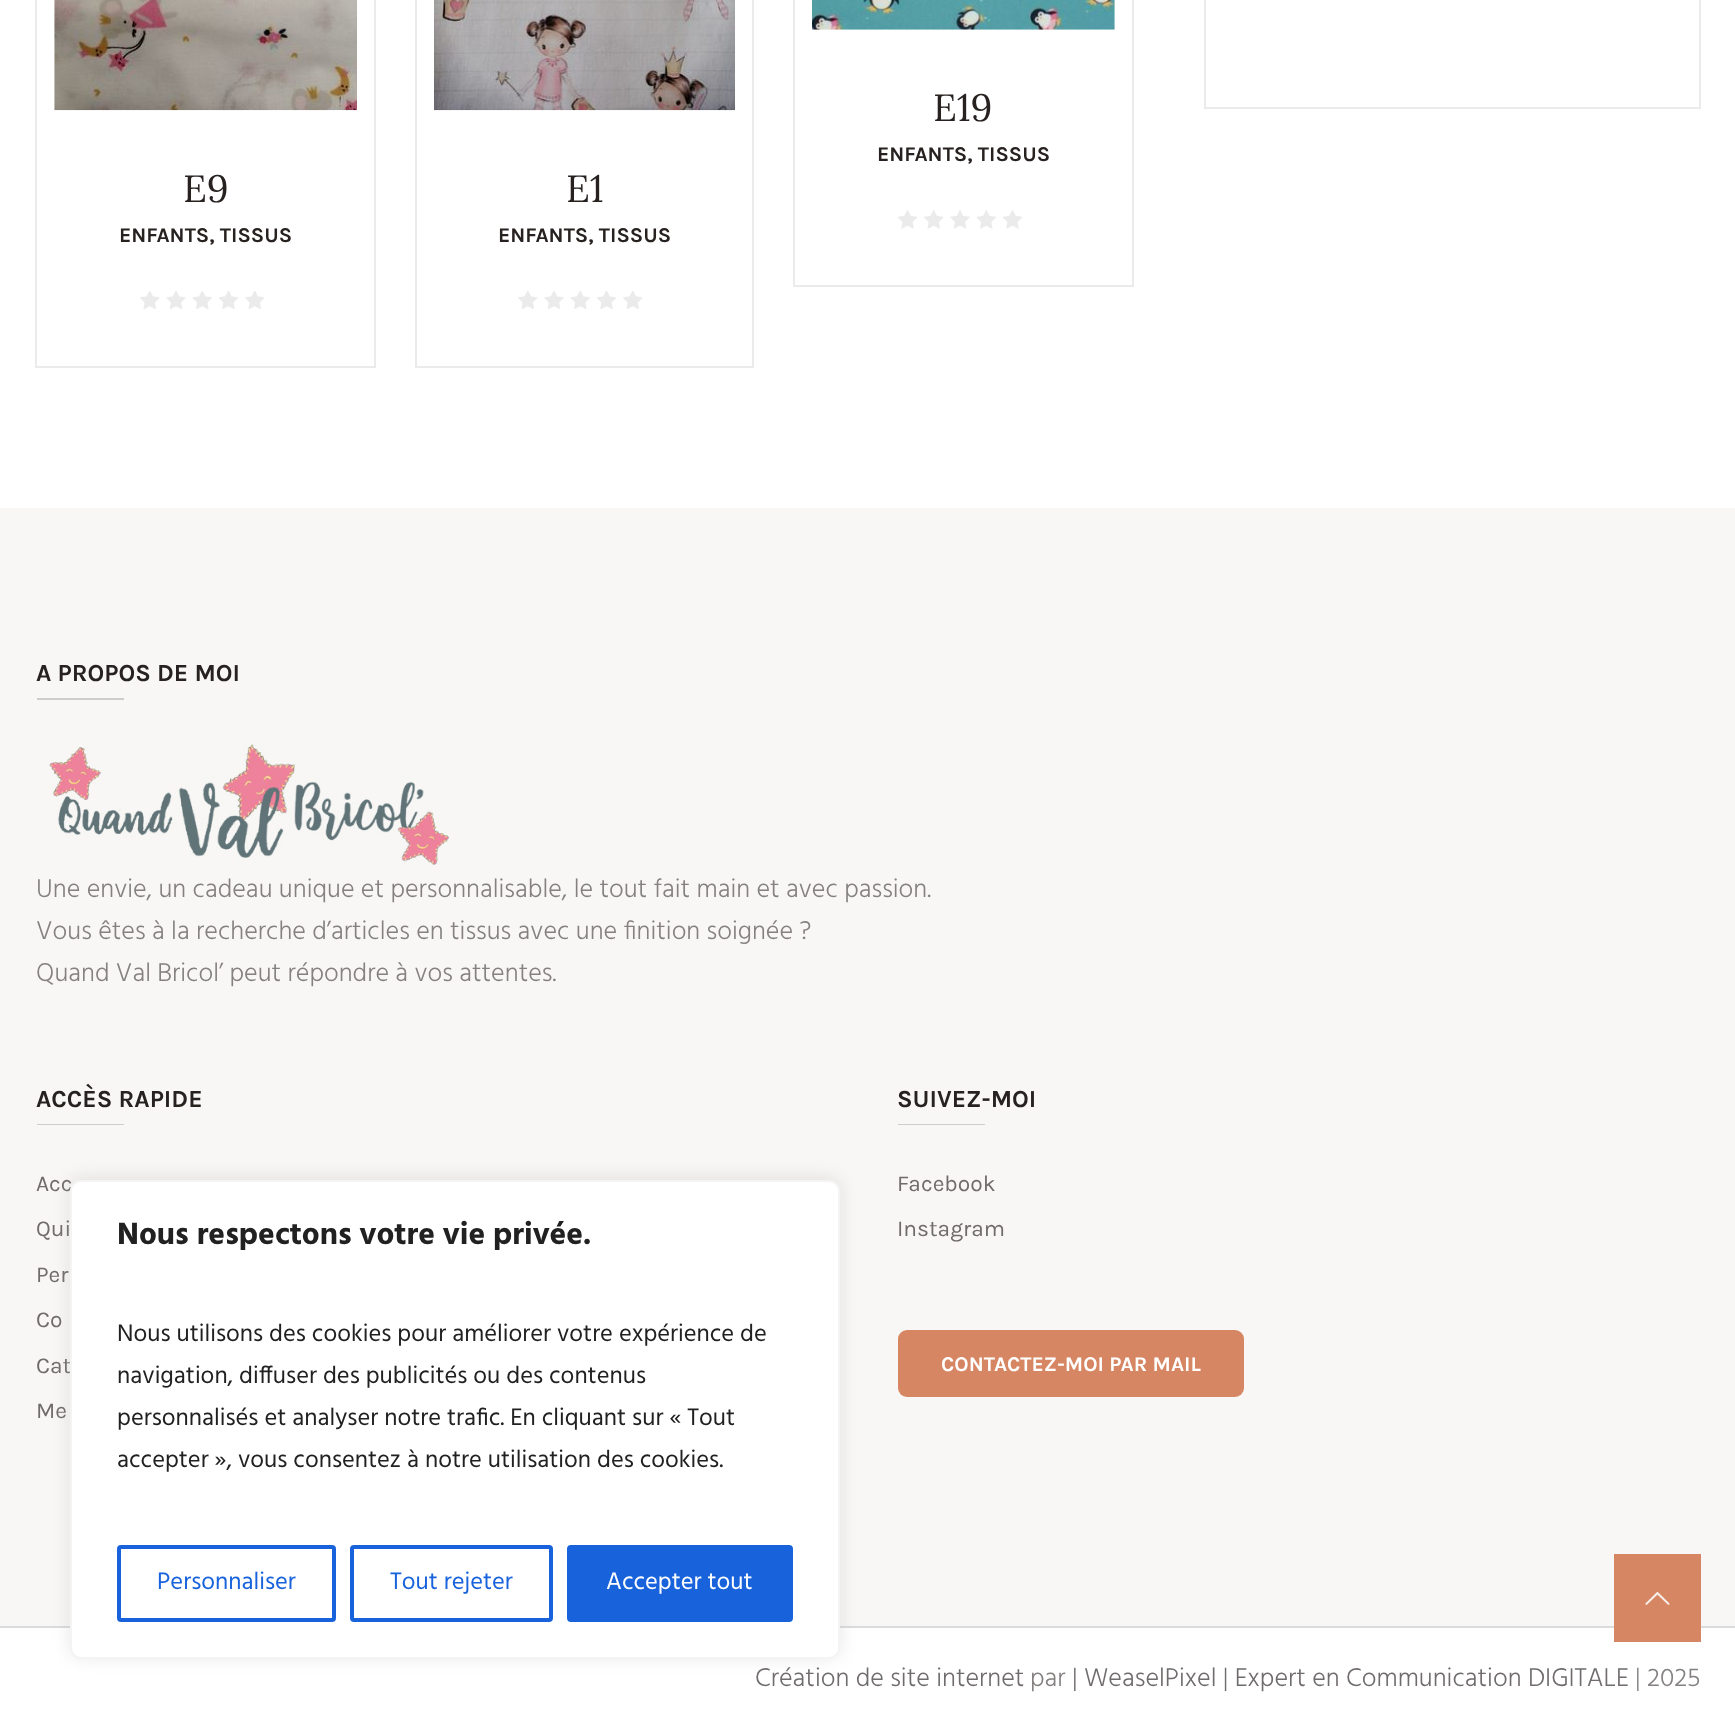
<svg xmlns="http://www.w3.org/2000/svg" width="1735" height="1728">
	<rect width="100%" height="100%" fill="#FFFFFF" />
	<rect x="1205" y="-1" width="495" height="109" fill="none" stroke="#EBEBEB" stroke-width="2" />
	<rect x="794" y="-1" width="339" height="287" fill="none" stroke="#EBEBEB" stroke-width="2" />
	<image x="812" y="0" width="303" height="30" href="assets/img1.png" />
	<text x="933" y="121" font-family="Lora" font-size="38" fill="#272220">E19</text>
	<text x="877" y="161" font-family="Karla" font-size="21" font-weight="700" fill="#272220">ENFANTS, TISSUS</text>
	<image x="898" y="210" width="19" height="19" href="assets/img2.png" />
	<image x="924" y="210" width="20" height="19" href="assets/img3.png" />
	<image x="950" y="210" width="20" height="19" href="assets/img4.png" />
	<image x="976" y="210" width="20" height="19" href="assets/img5.png" />
	<image x="1003" y="210" width="19" height="19" href="assets/img2.png" />
	<rect x="36" y="-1" width="339" height="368" fill="none" stroke="#EBEBEB" stroke-width="2" />
	<image x="54" y="0" width="303" height="111" href="assets/img6.png" />
	<text x="183" y="202" font-family="Lora" font-size="38" fill="#272220">E9</text>
	<text x="119" y="242" font-family="Karla" font-size="21" font-weight="700" fill="#272220">ENFANTS, TISSUS</text>
	<image x="140" y="291" width="20" height="18" href="assets/img7.png" />
	<image x="166" y="291" width="20" height="18" href="assets/img8.png" />
	<image x="192" y="291" width="20" height="18" href="assets/img9.png" />
	<image x="219" y="291" width="19" height="18" href="assets/img10.png" />
	<image x="245" y="291" width="20" height="18" href="assets/img7.png" />
	<rect x="416" y="-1" width="337" height="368" fill="none" stroke="#EBEBEB" stroke-width="2" />
	<image x="434" y="0" width="301" height="111" href="assets/img11.png" />
	<text x="566" y="202" font-family="Lora" font-size="38" fill="#272220">E1</text>
	<text x="498" y="242" font-family="Karla" font-size="21" font-weight="700" fill="#272220">ENFANTS, TISSUS</text>
	<image x="518" y="291" width="20" height="18" href="assets/img7.png" />
	<image x="544" y="291" width="20" height="18" href="assets/img8.png" />
	<image x="570" y="291" width="20" height="18" href="assets/img9.png" />
	<image x="597" y="291" width="19" height="18" href="assets/img10.png" />
	<image x="623" y="291" width="20" height="18" href="assets/img7.png" />
	<rect x="0" y="508" width="1735" height="1118" fill="#F8F7F5" />
	<text x="36" y="681" font-family="Karla" font-size="24.5" font-weight="700" fill="#272220">A PROPOS DE MOI</text>
	<rect x="37" y="698" width="87" height="2" fill="#CFCDC9" />
	<image x="49" y="744" width="401" height="123" href="assets/img12.png" />
	<g font-family="Hind" font-size="26.25" font-weight="300" fill="#848180">
		<text x="36" y="897">Une envie, un cadeau unique et personnalisable, le tout fait main et avec passion.</text>
		<text x="36" y="939">Vous êtes à la recherche d’articles en tissus avec une finition soignée ?</text>
		<text x="36" y="981">Quand Val Bricol’ peut répondre à vos attentes.</text>
	</g>
	<text x="36" y="1107" font-family="Karla" font-size="24.5" font-weight="700" fill="#272220">ACCÈS RAPIDE</text>
	<rect x="37" y="1124" width="87" height="1" fill="#CFCDC9" />
	<g font-family="Karla" font-size="22.75" fill="#706C6C">
		<text x="36" y="1191">Acc</text>
		<text x="36" y="1236">Qui</text>
		<text x="36" y="1282">Per</text>
		<text x="36" y="1327">Co</text>
		<text x="36" y="1373">Cat</text>
		<text x="36" y="1418">Me</text>
	</g>
	<text x="897" y="1107" font-family="Karla" font-size="24.5" font-weight="700" fill="#272220">SUIVEZ-MOI</text>
	<rect x="898" y="1124" width="87" height="1" fill="#CFCDC9" />
	<g font-family="Karla" font-size="22.75" fill="#706C6C">
		<text x="897" y="1191">Facebook</text>
		<text x="897" y="1236">Instagram</text>
	</g>
	<rect x="898" y="1330" width="346" height="67" rx="9" fill="#D68662" />
	<text x="941" y="1371" font-family="Karla" font-size="21" font-weight="700" fill="#FFFFFF">CONTACTEZ-MOI PAR MAIL</text>
	<rect x="0" y="1626" width="1735" height="2" fill="#DBDBDB" />
	<rect x="1614" y="1554" width="87" height="88" fill="#D68662" />
	<image x="1645" y="1592" width="25" height="13" href="assets/img13.png" />
	<text x="755" y="1686" font-family="Hind" font-size="26.25" font-weight="300" fill="#706C6C">Création de site internet</text>
	<text x="1030" y="1686" font-family="Hind" font-size="26.25" font-weight="300" fill="#848180">par</text>
	<text x="1072" y="1686" font-family="Hind" font-size="26.25" font-weight="300" fill="#706C6C">| WeaselPixel | Expert en Communication DIGITALE</text>
	<text x="1635" y="1686" font-family="Hind" font-size="26.25" font-weight="300" fill="#848180">| 2025</text>
	<rect x="70" y="1178" width="770" height="479" rx="11" fill="#ACABAB" fill-opacity="0.3" filter="blur(9px)" />
	<rect x="71" y="1181" width="768" height="477" rx="10" fill="#FFFFFF" stroke="#F4F4F4" stroke-width="2" />
	<text x="117" y="1244" font-family="Hind" font-size="31.5" font-weight="700" fill="#212121">Nous respectons votre vie privée.</text>
	<g font-family="Hind" font-size="24.5" fill="#212121">
		<text x="117" y="1341">Nous utilisons des cookies pour améliorer votre expérience de</text>
		<text x="117" y="1383">navigation, diffuser des publicités ou des contenus</text>
		<text x="117" y="1425">personnalisés et analyser notre trafic. En cliquant sur « Tout</text>
		<text x="117" y="1467">accepter », vous consentez à notre utilisation des cookies.</text>
	</g>
	<rect x="119" y="1547" width="215" height="73" rx="2" fill="none" stroke="#1863DC" stroke-width="4" />
	<text x="157" y="1589" font-family="Hind" font-size="24.5" fill="#1863DC">Personnaliser</text>
	<rect x="352" y="1547" width="199" height="73" rx="2" fill="none" stroke="#1863DC" stroke-width="4" />
	<text x="390" y="1589" font-family="Hind" font-size="24.5" fill="#1863DC">Tout rejeter</text>
	<rect x="569" y="1547" width="222" height="73" rx="2" fill="#1863DC" stroke="#1863DC" stroke-width="4" />
	<text x="606" y="1589" font-family="Hind" font-size="24.5" fill="#FFFFFF">Accepter tout</text>
</svg>
